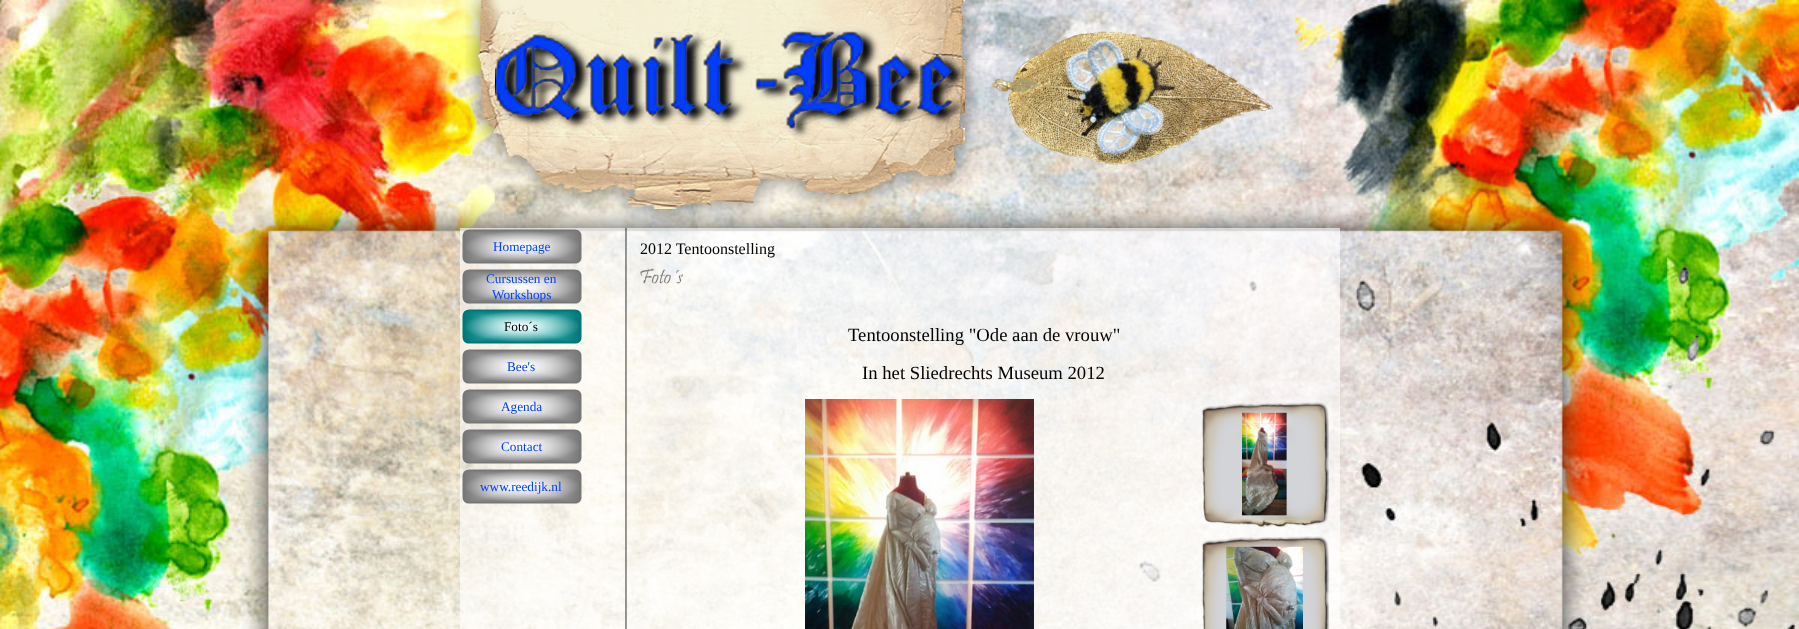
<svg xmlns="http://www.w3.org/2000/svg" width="1799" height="629">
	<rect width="100%" height="100%" fill="#FFFFFF" />
	<image x="0" y="0" width="1799" height="629" href="assets/img1.png" />
	<image x="465" y="0" width="515" height="223" href="assets/img2.png" />
	<image x="495" y="27" width="472" height="111" href="assets/img3.png" />
	<image x="991" y="31" width="282" height="135" href="assets/img4.png" />
	<image x="460" y="228" width="170" height="401" href="assets/img5.png" />
	<image x="462" y="229" width="120" height="35" href="assets/img6.png" />
	<text x="493" y="251" font-family="Liberation Serif" font-size="13.25" fill="#0040FF">Homepage</text>
	<image x="462" y="269" width="120" height="35" href="assets/img7.png" />
	<g font-family="Liberation Serif" font-size="13.25" fill="#0040FF">
		<text x="486" y="283">Cursussen en</text>
		<text x="492" y="299">Workshops</text>
	</g>
	<image x="462" y="309" width="120" height="35" href="assets/img8.png" />
	<text x="504" y="331" font-family="Liberation Serif" font-size="13.25" fill="#000000">Foto´s</text>
	<image x="462" y="349" width="120" height="35" href="assets/img9.png" />
	<text x="507" y="371" font-family="Liberation Serif" font-size="13.25" fill="#0040FF">Bee's</text>
	<image x="462" y="389" width="120" height="35" href="assets/img10.png" />
	<text x="501" y="411" font-family="Liberation Serif" font-size="13.25" fill="#0040FF">Agenda</text>
	<image x="462" y="429" width="120" height="35" href="assets/img11.png" />
	<text x="501" y="451" font-family="Liberation Serif" font-size="13.25" fill="#0040FF">Contact</text>
	<image x="462" y="469" width="120" height="35" href="assets/img12.png" />
	<text x="480" y="491" font-family="Liberation Serif" font-size="13.25" fill="#0040FF">www.reedijk.nl</text>
	<rect x="630" y="228" width="710" height="401" fill="#FFFFFF" fill-opacity="0.63" />
	<text x="640" y="254" font-family="Liberation Serif" font-size="16" fill="#000000">2012 Tentoonstelling</text>
	<text x="639" y="283" font-family="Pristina" font-size="21" fill="#808080">Foto´s</text>
	<g font-family="Liberation Serif" font-size="18.7" fill="#000000">
		<text x="848" y="341">Tentoonstelling "Ode aan de vrouw"</text>
		<text x="862" y="379">In het Sliedrechts Museum 2012</text>
	</g>
	<image x="805" y="399" width="229" height="230" href="assets/img13.png" />
	<image x="1201" y="402" width="128" height="126" href="assets/img14.png" />
	<image x="1201" y="536" width="128" height="93" href="assets/img15.png" />
</svg>
